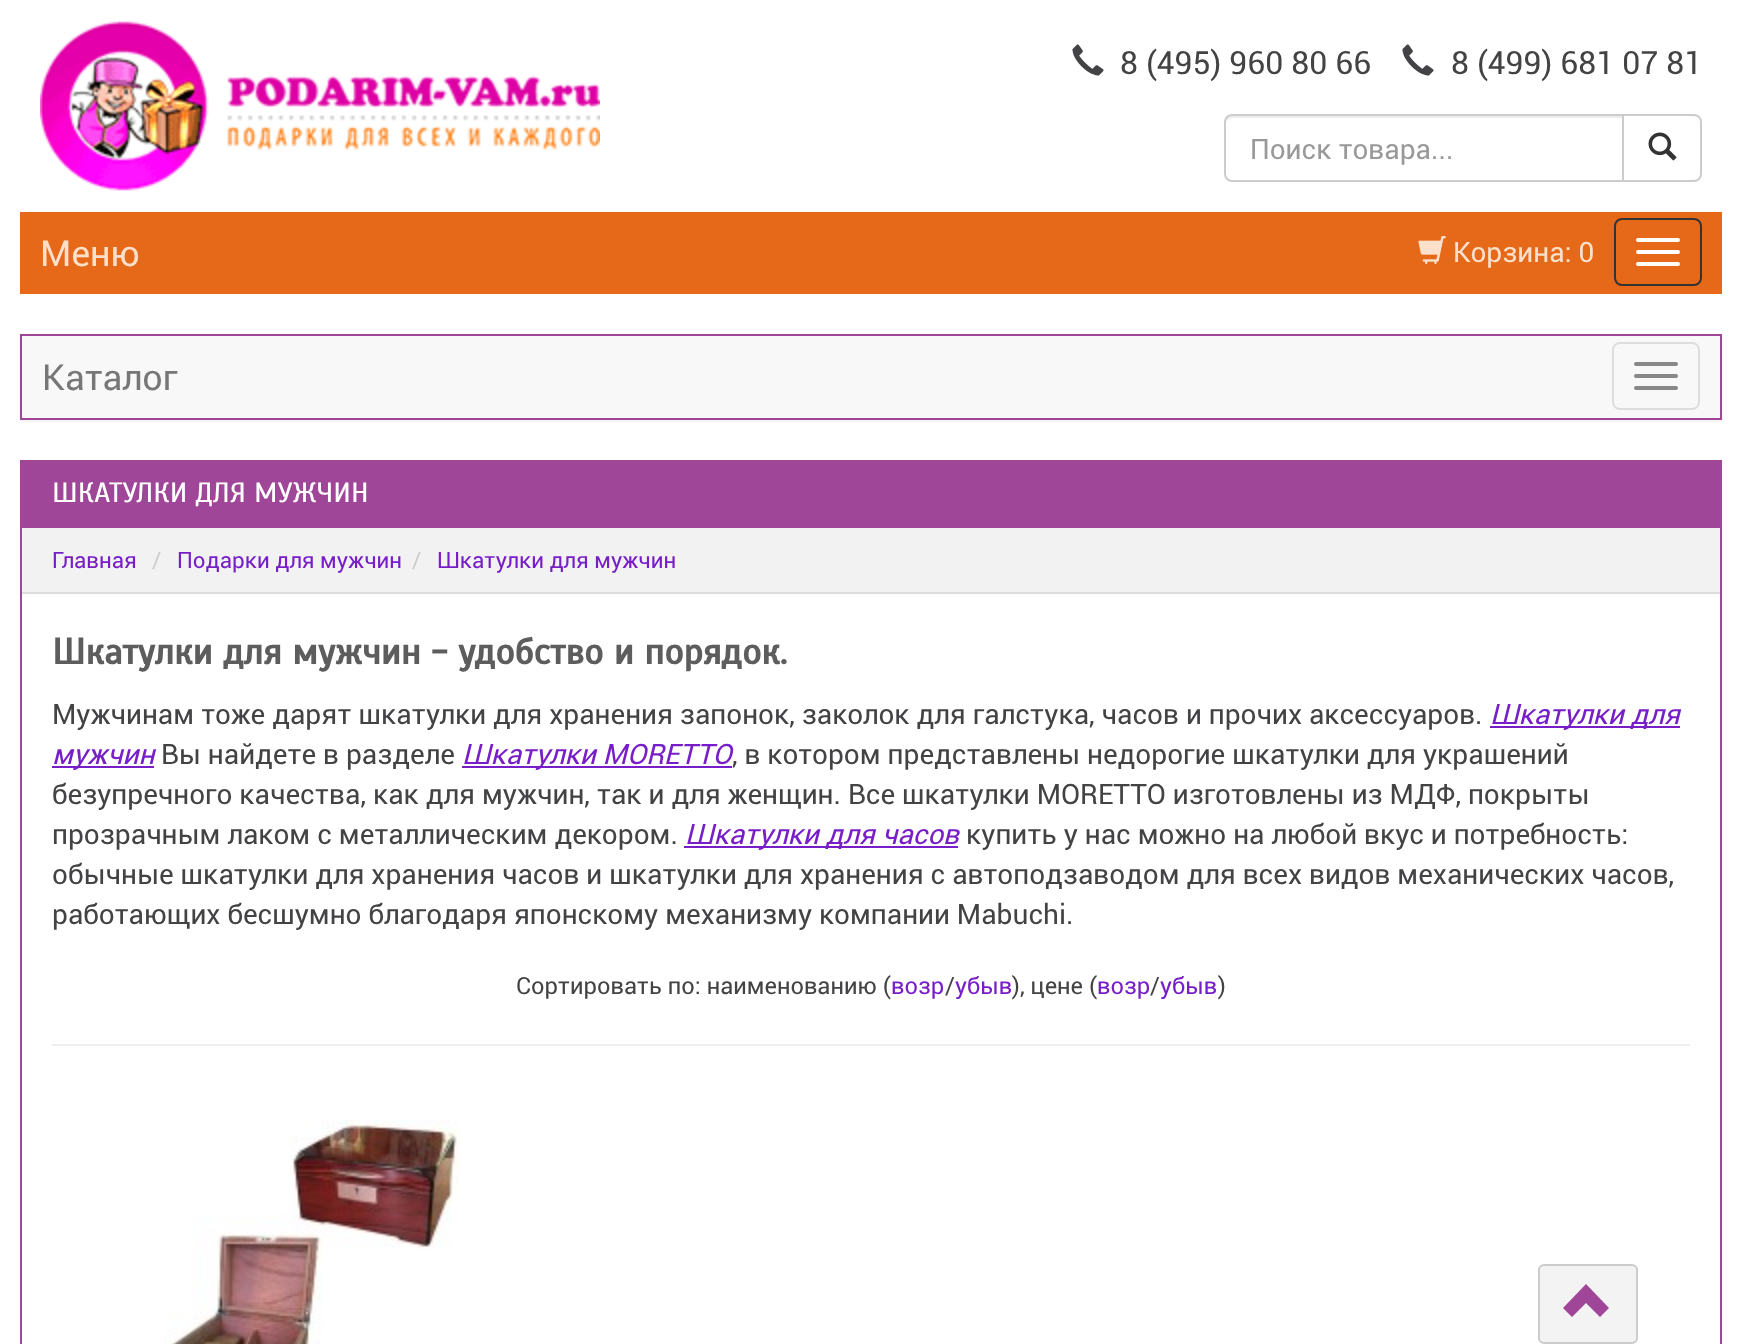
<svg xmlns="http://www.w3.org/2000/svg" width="1741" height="1344">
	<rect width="100%" height="100%" fill="#FFFFFF" />
	<image x="40" y="21" width="560" height="170" href="assets/img1.png" />
	<image x="1072" y="44" width="32" height="32" href="assets/img2.png" />
	<text x="1120" y="74" font-family="Roboto" font-size="32" fill="#434244">8 (495) 960 80 66</text>
	<image x="1402" y="44" width="32" height="32" href="assets/img2.png" />
	<text x="1451" y="74" font-family="Roboto" font-size="32" fill="#434244">8 (499) 681 07 81</text>
	<path d="M1232 118H1622V116H1232C1227 116 1226 120 1226 124C1226 121 1229 118 1232 118Z" fill="#ECECEC" />
	<path d="M1232 115H1623V181H1232C1228 181 1225 178 1225 174V122C1225 118 1228 115 1232 115Z" fill="none" stroke="#CCCCCC" stroke-width="2" />
	<text x="1250" y="159" font-family="Roboto" font-size="28" fill="#999999">Поиск товара...</text>
	<path d="M1623 115H1694C1698 115 1701 118 1701 122V174C1701 178 1698 181 1694 181H1623Z" fill="#FFFFFF" stroke="#CCCCCC" stroke-width="2" />
	<image x="1648" y="132" width="29" height="29" href="assets/img3.png" />
	<rect x="20" y="212" width="1702" height="82" fill="#E66919" />
	<text x="40" y="266" font-family="Roboto" font-size="36" fill="#FDE0CC">Меню</text>
	<image x="1418" y="236" width="28" height="28" href="assets/img4.png" />
	<text x="1453" y="262" font-family="Roboto" font-size="28" fill="#FDE0CC">Корзина: 0</text>
	<rect x="1615" y="219" width="86" height="66" rx="7" fill="none" stroke="#333333" stroke-width="2" />
	<rect x="1636" y="238" width="44" height="4" rx="2" fill="#FFFFFF" />
	<rect x="1636" y="250" width="44" height="4" rx="2" fill="#FFFFFF" />
	<rect x="1636" y="262" width="44" height="4" rx="2" fill="#FFFFFF" />
	<rect x="20" y="336" width="1702" height="86" fill="#000000" fill-opacity="0.05" filter="blur(1px)" />
	<rect x="21" y="335" width="1700" height="84" fill="none" stroke="#A04699" stroke-width="2" />
	<rect x="22" y="337" width="1698" height="81" fill="#F8F8F8" />
	<text x="42" y="390" font-family="Roboto" font-size="36" fill="#777777">Каталог</text>
	<rect x="1613" y="343" width="86" height="66" rx="7" fill="none" stroke="#DDDDDD" stroke-width="2" />
	<rect x="1634" y="362" width="44" height="4" rx="2" fill="#888888" />
	<rect x="1634" y="374" width="44" height="4" rx="2" fill="#888888" />
	<rect x="1634" y="386" width="44" height="4" rx="2" fill="#888888" />
	<rect x="21" y="461" width="1700" height="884" fill="none" stroke="#A04699" stroke-width="2" />
	<rect x="22" y="462" width="1698" height="66" fill="#A04699" />
	<text x="52" y="502" font-family="Scada" font-size="28" fill="#FFFFFF">ШКАТУЛКИ ДЛЯ МУЖЧИН</text>
	<rect x="22" y="528" width="1698" height="64" fill="#F2F2F2" />
	<rect x="22" y="592" width="1698" height="2" fill="#DDDDDD" />
	<text x="52" y="568" font-family="Roboto" font-size="22.4" fill="#781EC8">Главная</text>
	<text x="152" y="568" font-family="Roboto" font-size="22.4" fill="#CCCCCC">/</text>
	<text x="177" y="568" font-family="Roboto" font-size="22.4" fill="#781EC8">Подарки для мужчин</text>
	<text x="412" y="568" font-family="Roboto" font-size="22.4" fill="#CCCCCC">/</text>
	<text x="437" y="568" font-family="Roboto" font-size="22.4" fill="#781EC8">Шкатулки для мужчин</text>
	<text x="52" y="664" font-family="Scada" font-size="36.4" font-weight="700" fill="#5D5D5D">Шкатулки для мужчин - удобство и порядок.</text>
	<text x="52" y="724" font-family="Roboto" font-size="28" fill="#434244">Мужчинам тоже дарят шкатулки для хранения запонок, заколок для галстука, часов и прочих аксессуаров.</text>
	<rect x="1490" y="726" width="190" height="2" fill="#781EC8" />
	<text x="1490" y="724" font-family="Roboto" font-size="28" font-style="italic" fill="#781EC8">Шкатулки для</text>
	<rect x="52" y="766" width="102" height="2" fill="#781EC8" />
	<text x="52" y="764" font-family="Roboto" font-size="28" font-style="italic" fill="#781EC8">мужчин</text>
	<text x="161" y="764" font-family="Roboto" font-size="28" fill="#434244">Вы найдете в разделе</text>
	<rect x="462" y="766" width="270" height="2" fill="#781EC8" />
	<text x="462" y="764" font-family="Roboto" font-size="28" font-style="italic" fill="#781EC8">Шкатулки MORETTO</text>
	<g font-family="Roboto" font-size="28" fill="#434244">
		<text x="732" y="764">, в котором представлены недорогие шкатулки для украшений</text>
		<text x="52" y="804">безупречного качества, как для мужчин, так и для женщин. Все шкатулки MORETTO изготовлены из МДФ, покрыты</text>
		<text x="52" y="844">прозрачным лаком с металлическим декором.</text>
	</g>
	<rect x="684" y="846" width="274" height="2" fill="#781EC8" />
	<text x="685" y="844" font-family="Roboto" font-size="28" font-style="italic" fill="#781EC8">Шкатулки для часов</text>
	<g font-family="Roboto" font-size="28" fill="#434244">
		<text x="966" y="844">купить у нас можно на любой вкус и потребность:</text>
		<text x="52" y="884">обычные шкатулки для хранения часов и шкатулки для хранения с автоподзаводом для всех видов механических часов,</text>
		<text x="52" y="924">работающих бесшумно благодаря японскому механизму компании Mabuchi.</text>
	</g>
	<text x="516" y="994" font-family="Roboto" font-size="23.75" fill="#434244">Сортировать по: наименованию (</text>
	<text x="891" y="994" font-family="Roboto" font-size="23.75" fill="#781EC8">возр</text>
	<text x="945" y="994" font-family="Roboto" font-size="23.75" fill="#434244">/</text>
	<text x="955" y="994" font-family="Roboto" font-size="23.75" fill="#781EC8">убыв</text>
	<text x="1012" y="994" font-family="Roboto" font-size="23.75" fill="#434244">), цене (</text>
	<text x="1097" y="994" font-family="Roboto" font-size="23.75" fill="#781EC8">возр</text>
	<text x="1150" y="994" font-family="Roboto" font-size="23.75" fill="#434244">/</text>
	<text x="1160" y="994" font-family="Roboto" font-size="23.75" fill="#781EC8">убыв</text>
	<text x="1218" y="994" font-family="Roboto" font-size="23.75" fill="#434244">)</text>
	<rect x="52" y="1044" width="1638" height="2" fill="#EEEEEE" />
	<image x="164" y="1120" width="296" height="224" href="assets/img5.png" />
	<rect x="1539" y="1265" width="98" height="78" rx="5" fill="#F2F3F2" stroke="#CCCCCC" stroke-width="2" />
	<path d="M1563 1308L1572 1317L1586 1303L1600 1317L1609 1308L1586 1284Z" fill="#A04699" />
</svg>
